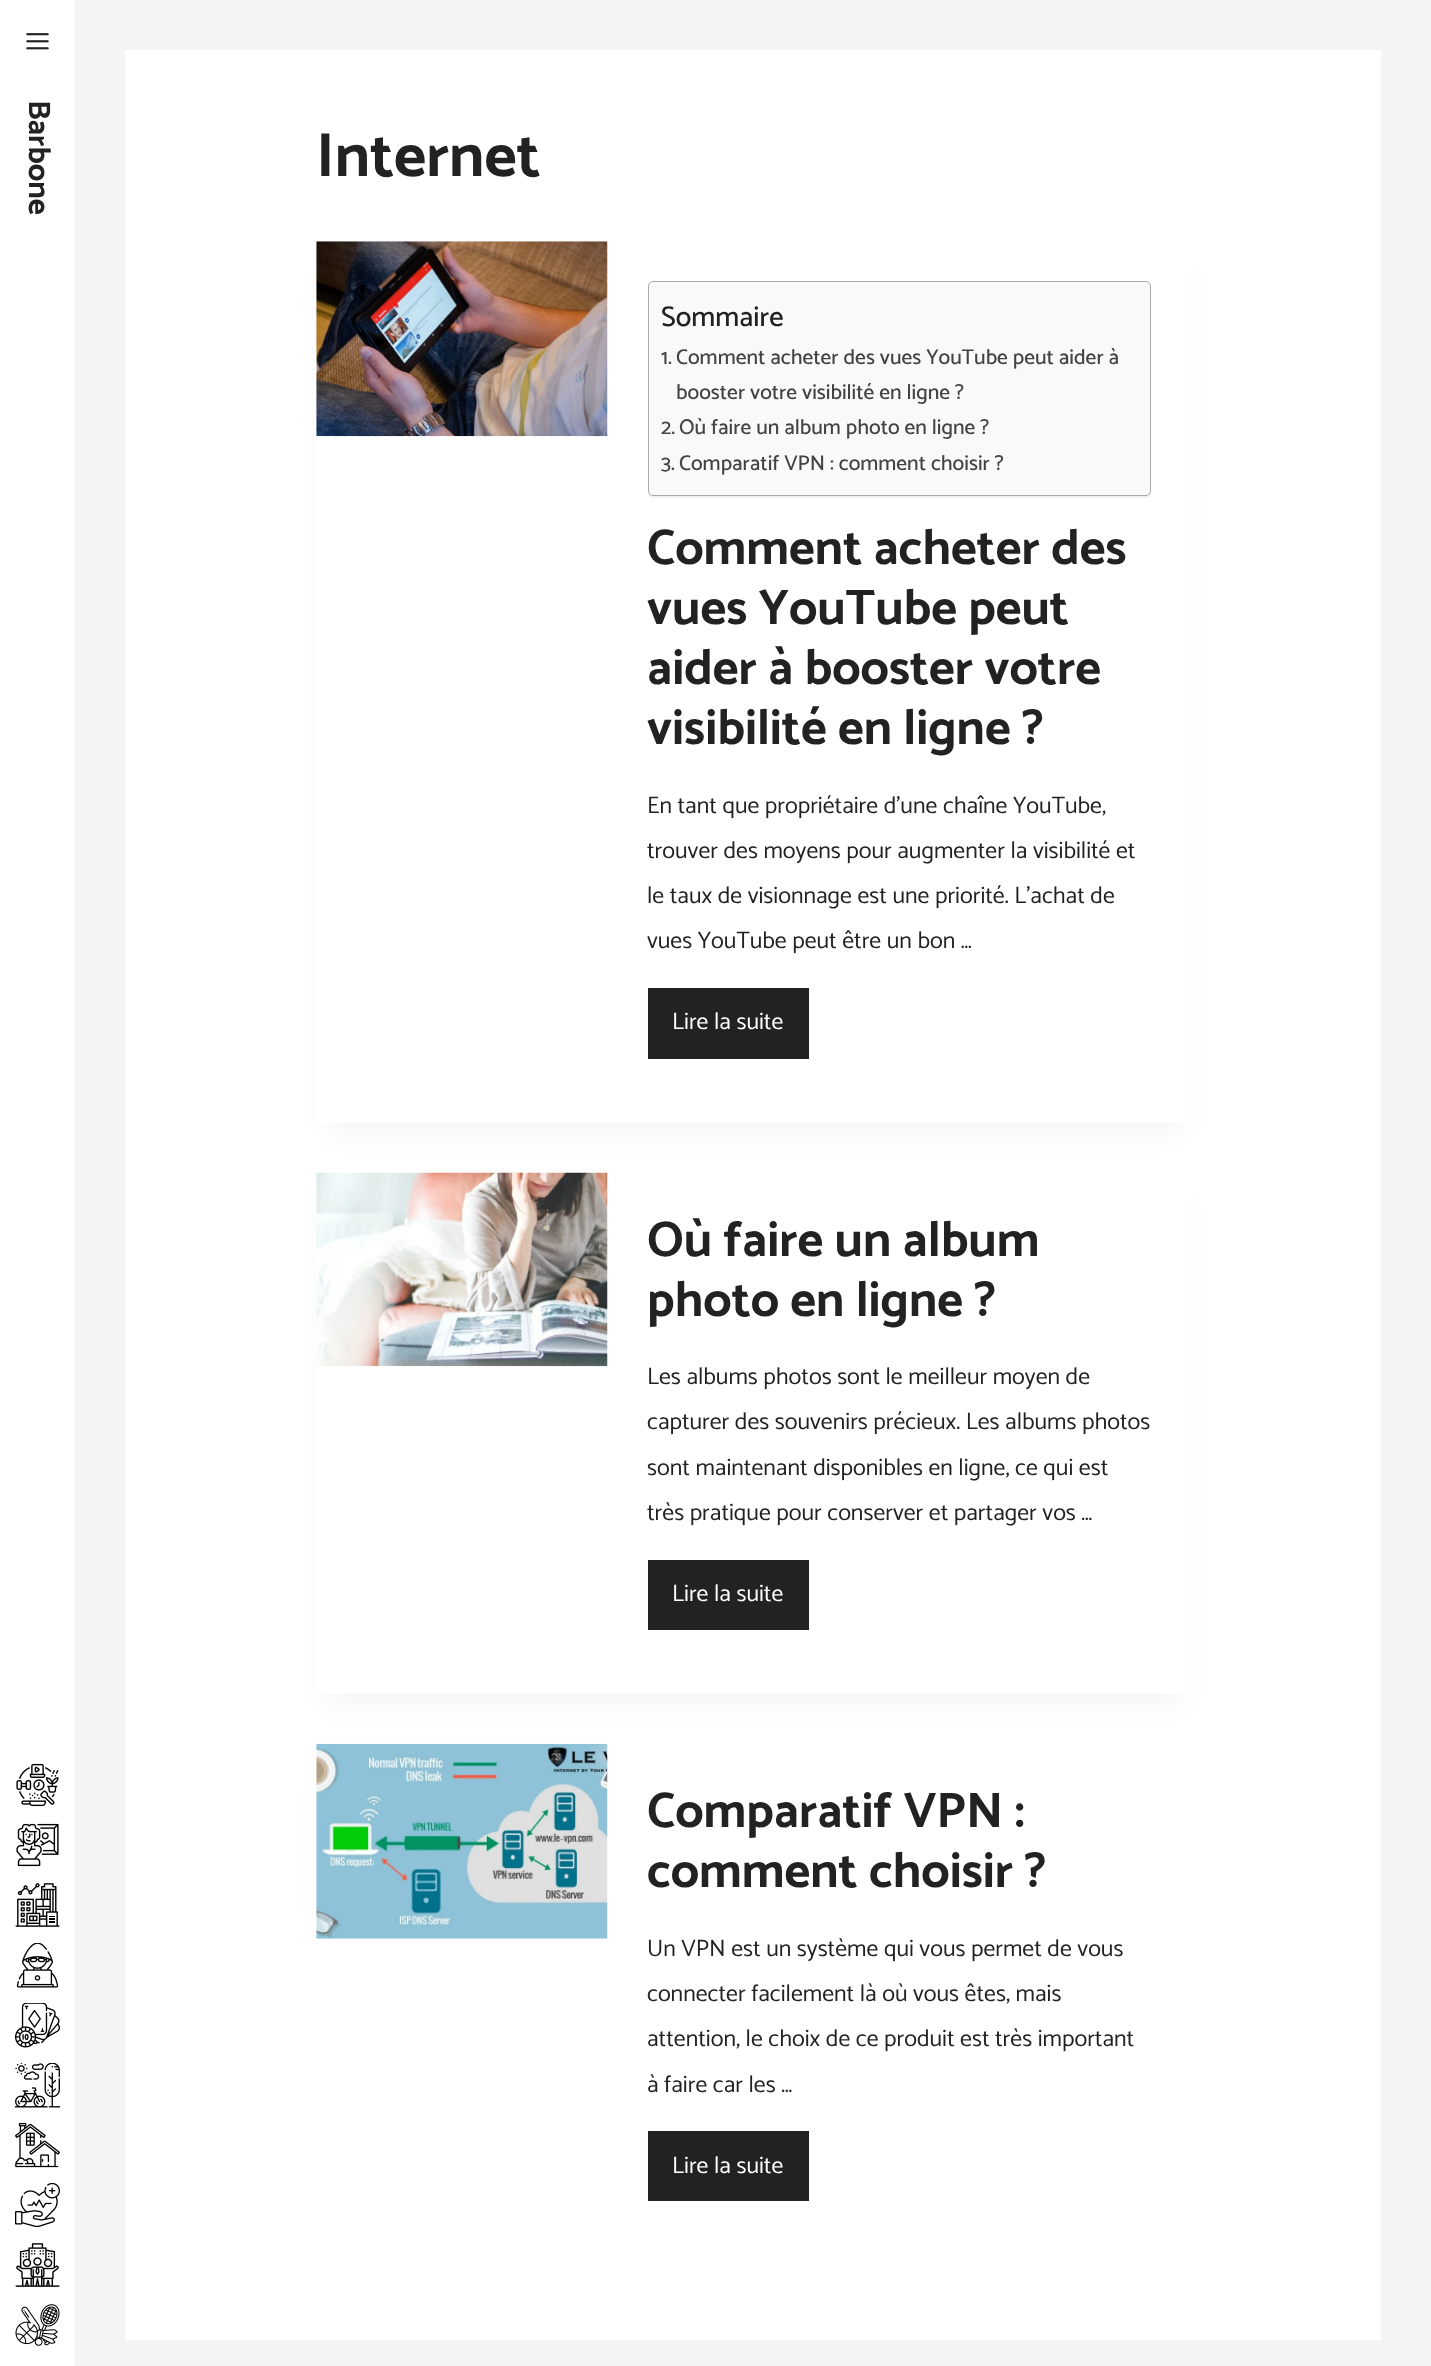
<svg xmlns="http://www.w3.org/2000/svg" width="1431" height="2366">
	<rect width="100%" height="100%" fill="#F4F4F4" />
	<rect x="0" y="0" width="75" height="2366" fill="#FFFFFF" />
	<image x="26" y="33" width="23" height="17" href="assets/img1.png" />
	<text x="29" y="100" transform="rotate(90 29 100)" font-family="Catamaran" font-size="31" font-weight="700" fill="#222222">Barbone</text>
	<image x="16" y="1763" width="43" height="44" href="assets/img2.png" />
	<image x="16" y="1823" width="43" height="44" href="assets/img3.png" />
	<image x="15" y="1883" width="45" height="44" href="assets/img4.png" />
	<image x="16" y="1943" width="43" height="45" href="assets/img5.png" />
	<image x="15" y="2003" width="45" height="45" href="assets/img6.png" />
	<image x="15" y="2063" width="45" height="45" href="assets/img7.png" />
	<image x="15" y="2123" width="45" height="45" href="assets/img8.png" />
	<image x="15" y="2183" width="45" height="45" href="assets/img9.png" />
	<image x="15" y="2243" width="45" height="44" href="assets/img10.png" />
	<image x="15" y="2304" width="45" height="42" href="assets/img11.png" />
	<rect x="125" y="50" width="1256" height="2290" fill="#FFFFFF" />
	<text x="316" y="176" font-family="Catamaran" font-size="62.5" font-weight="700" fill="#222222">Internet</text>
	<rect x="329" y="273" width="850" height="856" fill="#000000" fill-opacity="0.05" filter="blur(15.5px)" />
	<rect x="316" y="241" width="875" height="882" rx="5" fill="#FFFFFF" />
	<image x="316" y="241" width="292" height="196" href="assets/img12.png" />
	<rect x="648" y="283" width="503" height="215" rx="5" fill="#000000" fill-opacity="0.05" filter="blur(0.5px)" />
	<rect x="648.5" y="281.5" width="502" height="214" rx="4.5" fill="#F9F9F9" stroke="#AAAAAA" />
	<text x="661" y="326" font-family="Catamaran" font-size="28.5" font-weight="500" fill="#222222">Sommaire</text>
	<g font-family="Catamaran" font-size="21.4" font-weight="500" fill="#444444">
		<text x="661" y="364">1.</text>
		<text x="676" y="364">Comment acheter des vues YouTube peut aider à</text>
		<text x="676" y="399">booster votre visibilité en ligne ?</text>
		<text x="661" y="434">2.</text>
		<text x="679" y="434">Où faire un album photo en ligne ?</text>
		<text x="661" y="470">3.</text>
		<text x="679" y="470">Comparatif VPN : comment choisir ?</text>
	</g>
	<g font-family="Catamaran" font-size="50" font-weight="700" fill="#222222">
		<text x="647" y="564">Comment acheter des</text>
		<text x="647" y="624">vues YouTube peut</text>
		<text x="647" y="684">aider à booster votre</text>
		<text x="647" y="744">visibilité en ligne ?</text>
	</g>
	<g font-family="Catamaran" font-size="23.75" fill="#222222">
		<text x="647" y="813">En tant que propriétaire d’une chaîne YouTube,</text>
		<text x="647" y="858">trouver des moyens pour augmenter la visibilité et</text>
		<text x="647" y="903">le taux de visionnage est une priorité. L’achat de</text>
		<text x="647" y="948">vues YouTube peut être un bon …</text>
	</g>
	<rect x="648" y="988" width="161" height="71" fill="#222222" />
	<text x="672" y="1029" font-family="Catamaran" font-size="23.75" fill="#FFFFFF">Lire la suite</text>
	<rect x="329" y="1204" width="850" height="496" fill="#000000" fill-opacity="0.05" filter="blur(15.5px)" />
	<rect x="316" y="1173" width="875" height="521" rx="5" fill="#FFFFFF" />
	<image x="316" y="1172" width="292" height="195" href="assets/img13.png" />
	<g font-family="Catamaran" font-size="50" font-weight="700" fill="#222222">
		<text x="647" y="1256">Où faire un album</text>
		<text x="647" y="1316">photo en ligne ?</text>
	</g>
	<g font-family="Catamaran" font-size="23.75" fill="#222222">
		<text x="647" y="1384">Les albums photos sont le meilleur moyen de</text>
		<text x="647" y="1429">capturer des souvenirs précieux. Les albums photos</text>
		<text x="647" y="1475">sont maintenant disponibles en ligne, ce qui est</text>
		<text x="647" y="1520">très pratique pour conserver et partager vos …</text>
	</g>
	<rect x="648" y="1560" width="161" height="70" fill="#222222" />
	<text x="672" y="1601" font-family="Catamaran" font-size="23.75" fill="#FFFFFF">Lire la suite</text>
	<image x="316" y="1743" width="292" height="196" href="assets/img14.png" />
	<g font-family="Catamaran" font-size="50" font-weight="700" fill="#222222">
		<text x="647" y="1827">Comparatif VPN :</text>
		<text x="647" y="1887">comment choisir ?</text>
	</g>
	<g font-family="Catamaran" font-size="23.75" fill="#222222">
		<text x="647" y="1956">Un VPN est un système qui vous permet de vous</text>
		<text x="647" y="2001">connecter facilement là où vous êtes, mais</text>
		<text x="647" y="2046">attention, le choix de ce produit est très important</text>
		<text x="647" y="2092">à faire car les …</text>
	</g>
	<rect x="648" y="2131" width="161" height="70" fill="#222222" />
	<text x="672" y="2173" font-family="Catamaran" font-size="23.75" fill="#FFFFFF">Lire la suite</text>
</svg>
